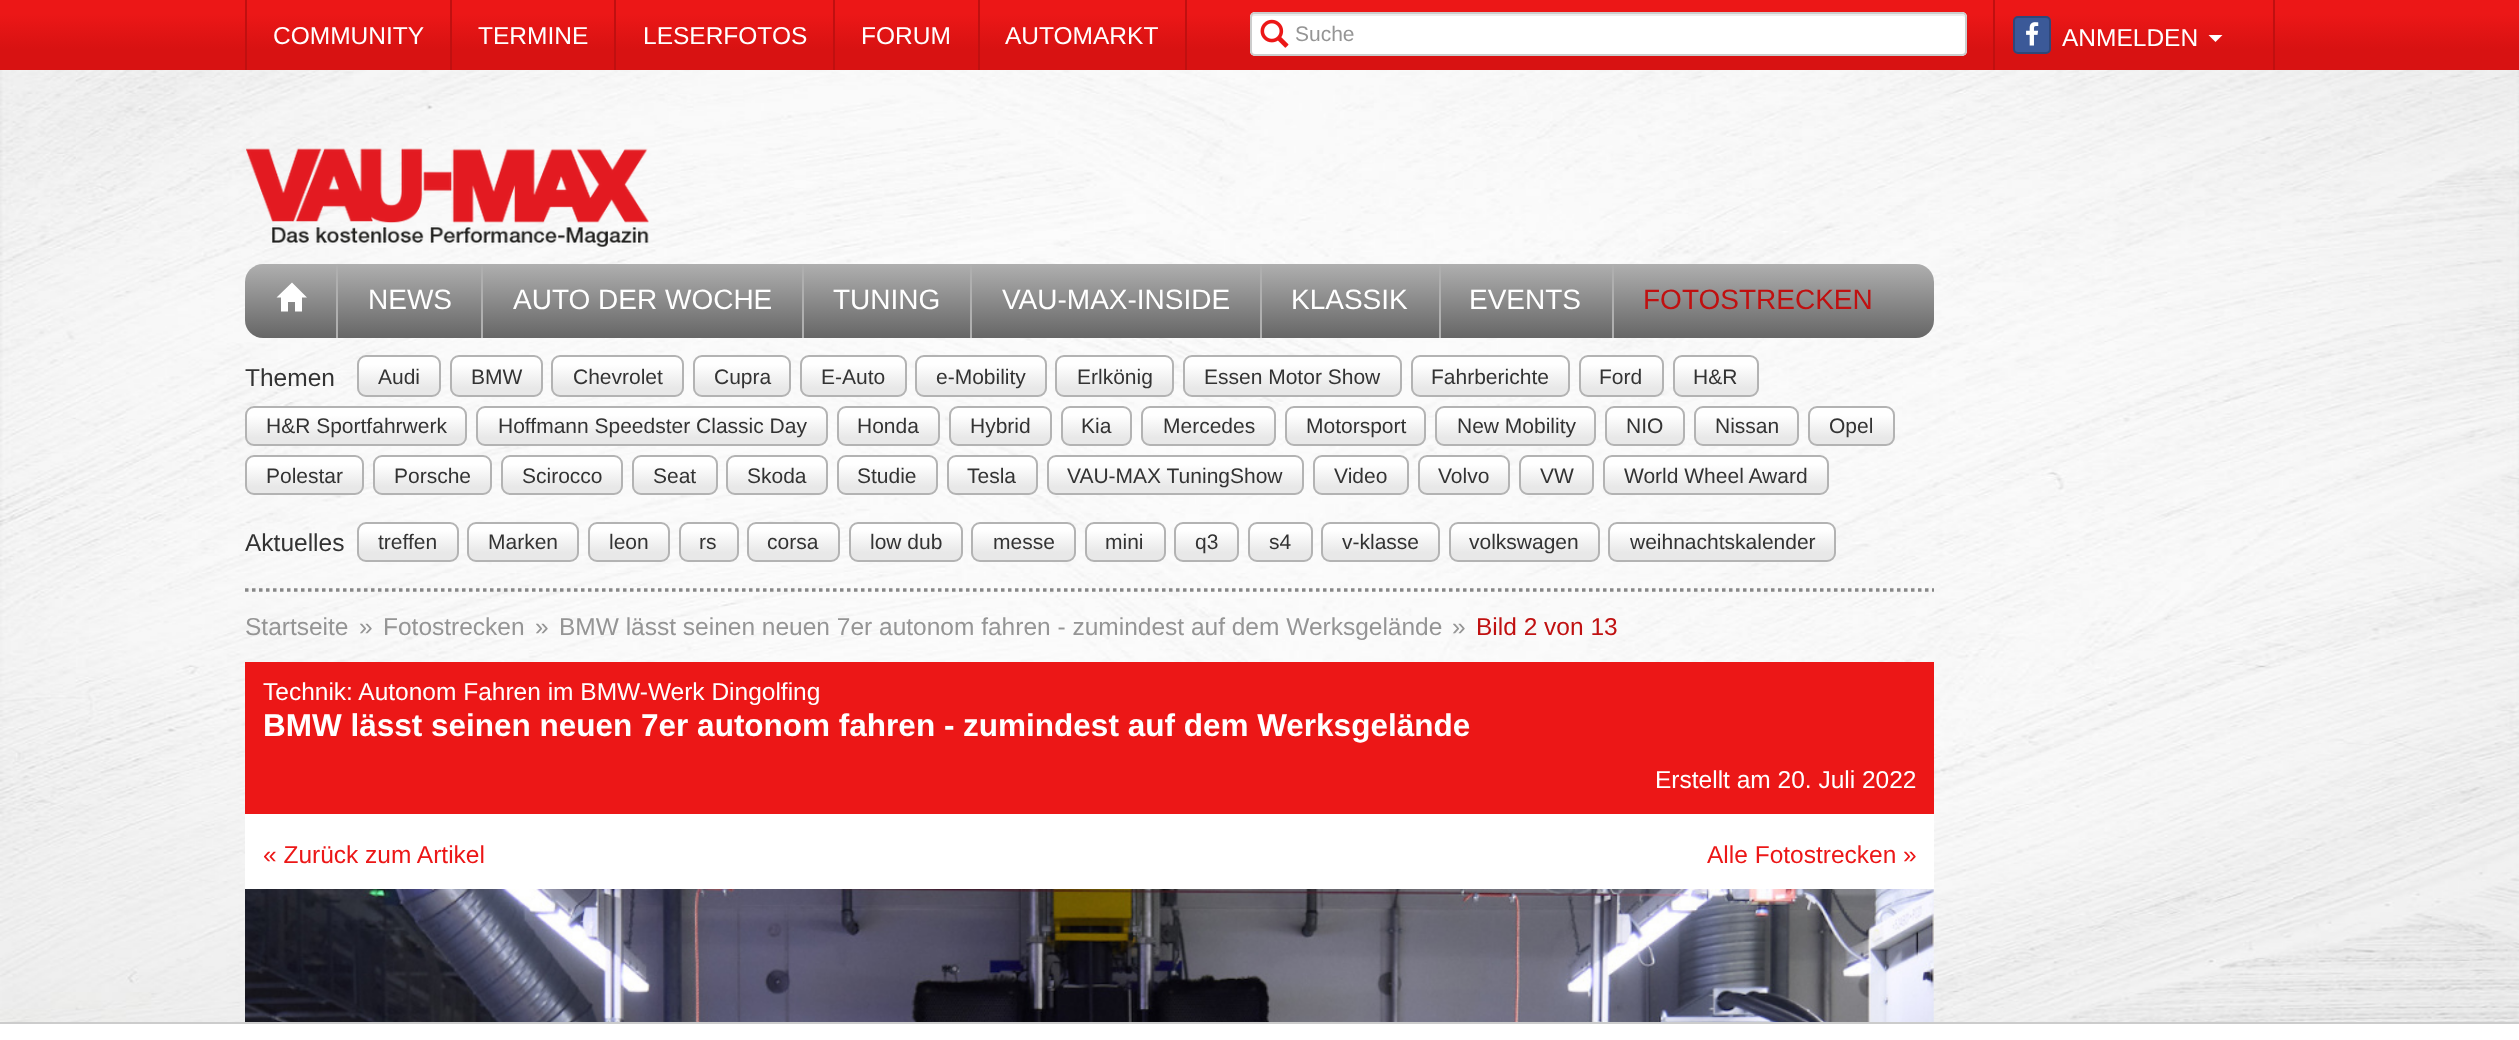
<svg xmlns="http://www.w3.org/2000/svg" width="2519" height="1040">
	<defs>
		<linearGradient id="g1" gradientUnits="userSpaceOnUse" x1="1260" y1="0" x2="1260" y2="70"><stop offset="0.2" stop-color="#EC1717" /><stop offset="0.7" stop-color="#D81212" /></linearGradient>
		<linearGradient id="g2" gradientUnits="userSpaceOnUse" x1="1089" y1="264" x2="1089" y2="338"><stop offset="0" stop-color="#AFAFAF" /><stop offset="1" stop-color="#666666" /></linearGradient>
		<clipPath id="clip1"><rect x="357" y="355" width="84" height="42" rx="9" /></clipPath>
		<linearGradient id="g3" gradientUnits="userSpaceOnUse" x1="399" y1="357" x2="399" y2="396"><stop offset="0.2" stop-color="#FFFFFF" /><stop offset="0.8" stop-color="#E8E8E8" /></linearGradient>
		<clipPath id="clip2"><rect x="450" y="355" width="93" height="42" rx="9" /></clipPath>
		<linearGradient id="g4" gradientUnits="userSpaceOnUse" x1="496" y1="357" x2="496" y2="396"><stop offset="0.2" stop-color="#FFFFFF" /><stop offset="0.8" stop-color="#E8E8E8" /></linearGradient>
		<clipPath id="clip3"><rect x="551" y="355" width="133" height="42" rx="9" /></clipPath>
		<linearGradient id="g5" gradientUnits="userSpaceOnUse" x1="618" y1="357" x2="618" y2="396"><stop offset="0.2" stop-color="#FFFFFF" /><stop offset="0.8" stop-color="#E8E8E8" /></linearGradient>
		<clipPath id="clip4"><rect x="693" y="355" width="98" height="42" rx="9" /></clipPath>
		<linearGradient id="g6" gradientUnits="userSpaceOnUse" x1="742" y1="357" x2="742" y2="396"><stop offset="0.2" stop-color="#FFFFFF" /><stop offset="0.8" stop-color="#E8E8E8" /></linearGradient>
		<clipPath id="clip5"><rect x="800" y="355" width="107" height="42" rx="9" /></clipPath>
		<linearGradient id="g7" gradientUnits="userSpaceOnUse" x1="853" y1="357" x2="853" y2="396"><stop offset="0.2" stop-color="#FFFFFF" /><stop offset="0.8" stop-color="#E8E8E8" /></linearGradient>
		<clipPath id="clip6"><rect x="915" y="355" width="132" height="42" rx="9" /></clipPath>
		<linearGradient id="g8" gradientUnits="userSpaceOnUse" x1="981" y1="357" x2="981" y2="396"><stop offset="0.2" stop-color="#FFFFFF" /><stop offset="0.8" stop-color="#E8E8E8" /></linearGradient>
		<clipPath id="clip7"><rect x="1055" y="355" width="119" height="42" rx="9" /></clipPath>
		<linearGradient id="g9" gradientUnits="userSpaceOnUse" x1="1115" y1="357" x2="1115" y2="396"><stop offset="0.2" stop-color="#FFFFFF" /><stop offset="0.8" stop-color="#E8E8E8" /></linearGradient>
		<clipPath id="clip8"><rect x="1183" y="355" width="219" height="42" rx="9" /></clipPath>
		<linearGradient id="g10" gradientUnits="userSpaceOnUse" x1="1292" y1="357" x2="1292" y2="396"><stop offset="0.2" stop-color="#FFFFFF" /><stop offset="0.8" stop-color="#E8E8E8" /></linearGradient>
		<clipPath id="clip9"><rect x="1411" y="355" width="159" height="42" rx="9" /></clipPath>
		<linearGradient id="g11" gradientUnits="userSpaceOnUse" x1="1490" y1="357" x2="1490" y2="396"><stop offset="0.2" stop-color="#FFFFFF" /><stop offset="0.8" stop-color="#E8E8E8" /></linearGradient>
		<clipPath id="clip10"><rect x="1579" y="355" width="85" height="42" rx="9" /></clipPath>
		<linearGradient id="g12" gradientUnits="userSpaceOnUse" x1="1621" y1="357" x2="1621" y2="396"><stop offset="0.2" stop-color="#FFFFFF" /><stop offset="0.8" stop-color="#E8E8E8" /></linearGradient>
		<clipPath id="clip11"><rect x="1673" y="355" width="86" height="42" rx="9" /></clipPath>
		<linearGradient id="g13" gradientUnits="userSpaceOnUse" x1="1716" y1="357" x2="1716" y2="396"><stop offset="0.2" stop-color="#FFFFFF" /><stop offset="0.8" stop-color="#E8E8E8" /></linearGradient>
		<clipPath id="clip12"><rect x="245" y="406" width="222" height="40" rx="9" /></clipPath>
		<linearGradient id="g14" gradientUnits="userSpaceOnUse" x1="356" y1="408" x2="356" y2="445"><stop offset="0.2" stop-color="#FFFFFF" /><stop offset="0.8" stop-color="#E8E8E8" /></linearGradient>
		<clipPath id="clip13"><rect x="476" y="406" width="352" height="40" rx="9" /></clipPath>
		<linearGradient id="g15" gradientUnits="userSpaceOnUse" x1="652" y1="408" x2="652" y2="445"><stop offset="0.2" stop-color="#FFFFFF" /><stop offset="0.8" stop-color="#E8E8E8" /></linearGradient>
		<clipPath id="clip14"><rect x="837" y="406" width="103" height="40" rx="9" /></clipPath>
		<linearGradient id="g16" gradientUnits="userSpaceOnUse" x1="888" y1="408" x2="888" y2="445"><stop offset="0.2" stop-color="#FFFFFF" /><stop offset="0.8" stop-color="#E8E8E8" /></linearGradient>
		<clipPath id="clip15"><rect x="949" y="406" width="103" height="40" rx="9" /></clipPath>
		<linearGradient id="g17" gradientUnits="userSpaceOnUse" x1="1000" y1="408" x2="1000" y2="445"><stop offset="0.2" stop-color="#FFFFFF" /><stop offset="0.8" stop-color="#E8E8E8" /></linearGradient>
		<clipPath id="clip16"><rect x="1061" y="406" width="71" height="40" rx="9" /></clipPath>
		<linearGradient id="g18" gradientUnits="userSpaceOnUse" x1="1096" y1="408" x2="1096" y2="445"><stop offset="0.2" stop-color="#FFFFFF" /><stop offset="0.8" stop-color="#E8E8E8" /></linearGradient>
		<clipPath id="clip17"><rect x="1141" y="406" width="135" height="40" rx="9" /></clipPath>
		<linearGradient id="g19" gradientUnits="userSpaceOnUse" x1="1208" y1="408" x2="1208" y2="445"><stop offset="0.2" stop-color="#FFFFFF" /><stop offset="0.8" stop-color="#E8E8E8" /></linearGradient>
		<clipPath id="clip18"><rect x="1285" y="406" width="141" height="40" rx="9" /></clipPath>
		<linearGradient id="g20" gradientUnits="userSpaceOnUse" x1="1355" y1="408" x2="1355" y2="445"><stop offset="0.2" stop-color="#FFFFFF" /><stop offset="0.8" stop-color="#E8E8E8" /></linearGradient>
		<clipPath id="clip19"><rect x="1435" y="406" width="161" height="40" rx="9" /></clipPath>
		<linearGradient id="g21" gradientUnits="userSpaceOnUse" x1="1516" y1="408" x2="1516" y2="445"><stop offset="0.2" stop-color="#FFFFFF" /><stop offset="0.8" stop-color="#E8E8E8" /></linearGradient>
		<clipPath id="clip20"><rect x="1605" y="406" width="80" height="40" rx="9" /></clipPath>
		<linearGradient id="g22" gradientUnits="userSpaceOnUse" x1="1645" y1="408" x2="1645" y2="445"><stop offset="0.2" stop-color="#FFFFFF" /><stop offset="0.8" stop-color="#E8E8E8" /></linearGradient>
		<clipPath id="clip21"><rect x="1694" y="406" width="105" height="40" rx="9" /></clipPath>
		<linearGradient id="g23" gradientUnits="userSpaceOnUse" x1="1747" y1="408" x2="1747" y2="445"><stop offset="0.2" stop-color="#FFFFFF" /><stop offset="0.8" stop-color="#E8E8E8" /></linearGradient>
		<clipPath id="clip22"><rect x="1808" y="406" width="87" height="40" rx="9" /></clipPath>
		<linearGradient id="g24" gradientUnits="userSpaceOnUse" x1="1852" y1="408" x2="1852" y2="445"><stop offset="0.2" stop-color="#FFFFFF" /><stop offset="0.8" stop-color="#E8E8E8" /></linearGradient>
		<clipPath id="clip23"><rect x="245" y="455" width="119" height="40" rx="9" /></clipPath>
		<linearGradient id="g25" gradientUnits="userSpaceOnUse" x1="305" y1="457" x2="305" y2="494"><stop offset="0.2" stop-color="#FFFFFF" /><stop offset="0.8" stop-color="#E8E8E8" /></linearGradient>
		<clipPath id="clip24"><rect x="373" y="455" width="119" height="40" rx="9" /></clipPath>
		<linearGradient id="g26" gradientUnits="userSpaceOnUse" x1="432" y1="457" x2="432" y2="494"><stop offset="0.2" stop-color="#FFFFFF" /><stop offset="0.8" stop-color="#E8E8E8" /></linearGradient>
		<clipPath id="clip25"><rect x="501" y="455" width="122" height="40" rx="9" /></clipPath>
		<linearGradient id="g27" gradientUnits="userSpaceOnUse" x1="562" y1="457" x2="562" y2="494"><stop offset="0.2" stop-color="#FFFFFF" /><stop offset="0.8" stop-color="#E8E8E8" /></linearGradient>
		<clipPath id="clip26"><rect x="632" y="455" width="86" height="40" rx="9" /></clipPath>
		<linearGradient id="g28" gradientUnits="userSpaceOnUse" x1="675" y1="457" x2="675" y2="494"><stop offset="0.2" stop-color="#FFFFFF" /><stop offset="0.8" stop-color="#E8E8E8" /></linearGradient>
		<clipPath id="clip27"><rect x="726" y="455" width="102" height="40" rx="9" /></clipPath>
		<linearGradient id="g29" gradientUnits="userSpaceOnUse" x1="777" y1="457" x2="777" y2="494"><stop offset="0.2" stop-color="#FFFFFF" /><stop offset="0.8" stop-color="#E8E8E8" /></linearGradient>
		<clipPath id="clip28"><rect x="837" y="455" width="101" height="40" rx="9" /></clipPath>
		<linearGradient id="g30" gradientUnits="userSpaceOnUse" x1="887" y1="457" x2="887" y2="494"><stop offset="0.2" stop-color="#FFFFFF" /><stop offset="0.8" stop-color="#E8E8E8" /></linearGradient>
		<clipPath id="clip29"><rect x="947" y="455" width="91" height="40" rx="9" /></clipPath>
		<linearGradient id="g31" gradientUnits="userSpaceOnUse" x1="992" y1="457" x2="992" y2="494"><stop offset="0.2" stop-color="#FFFFFF" /><stop offset="0.8" stop-color="#E8E8E8" /></linearGradient>
		<clipPath id="clip30"><rect x="1047" y="455" width="257" height="40" rx="9" /></clipPath>
		<linearGradient id="g32" gradientUnits="userSpaceOnUse" x1="1175" y1="457" x2="1175" y2="494"><stop offset="0.2" stop-color="#FFFFFF" /><stop offset="0.8" stop-color="#E8E8E8" /></linearGradient>
		<clipPath id="clip31"><rect x="1313" y="455" width="96" height="40" rx="9" /></clipPath>
		<linearGradient id="g33" gradientUnits="userSpaceOnUse" x1="1361" y1="457" x2="1361" y2="494"><stop offset="0.2" stop-color="#FFFFFF" /><stop offset="0.8" stop-color="#E8E8E8" /></linearGradient>
		<clipPath id="clip32"><rect x="1418" y="455" width="92" height="40" rx="9" /></clipPath>
		<linearGradient id="g34" gradientUnits="userSpaceOnUse" x1="1464" y1="457" x2="1464" y2="494"><stop offset="0.2" stop-color="#FFFFFF" /><stop offset="0.8" stop-color="#E8E8E8" /></linearGradient>
		<clipPath id="clip33"><rect x="1519" y="455" width="75" height="40" rx="9" /></clipPath>
		<linearGradient id="g35" gradientUnits="userSpaceOnUse" x1="1557" y1="457" x2="1557" y2="494"><stop offset="0.2" stop-color="#FFFFFF" /><stop offset="0.8" stop-color="#E8E8E8" /></linearGradient>
		<clipPath id="clip34"><rect x="1603" y="455" width="226" height="40" rx="9" /></clipPath>
		<linearGradient id="g36" gradientUnits="userSpaceOnUse" x1="1716" y1="457" x2="1716" y2="494"><stop offset="0.2" stop-color="#FFFFFF" /><stop offset="0.8" stop-color="#E8E8E8" /></linearGradient>
		<clipPath id="clip35"><rect x="357" y="522" width="102" height="40" rx="9" /></clipPath>
		<linearGradient id="g37" gradientUnits="userSpaceOnUse" x1="408" y1="523" x2="408" y2="560"><stop offset="0.2" stop-color="#FFFFFF" /><stop offset="0.8" stop-color="#E8E8E8" /></linearGradient>
		<clipPath id="clip36"><rect x="467" y="522" width="112" height="40" rx="9" /></clipPath>
		<linearGradient id="g38" gradientUnits="userSpaceOnUse" x1="523" y1="523" x2="523" y2="560"><stop offset="0.2" stop-color="#FFFFFF" /><stop offset="0.8" stop-color="#E8E8E8" /></linearGradient>
		<clipPath id="clip37"><rect x="588" y="522" width="82" height="40" rx="9" /></clipPath>
		<linearGradient id="g39" gradientUnits="userSpaceOnUse" x1="629" y1="523" x2="629" y2="560"><stop offset="0.2" stop-color="#FFFFFF" /><stop offset="0.8" stop-color="#E8E8E8" /></linearGradient>
		<clipPath id="clip38"><rect x="679" y="522" width="60" height="40" rx="9" /></clipPath>
		<linearGradient id="g40" gradientUnits="userSpaceOnUse" x1="709" y1="523" x2="709" y2="560"><stop offset="0.2" stop-color="#FFFFFF" /><stop offset="0.8" stop-color="#E8E8E8" /></linearGradient>
		<clipPath id="clip39"><rect x="747" y="522" width="93" height="40" rx="9" /></clipPath>
		<linearGradient id="g41" gradientUnits="userSpaceOnUse" x1="794" y1="523" x2="794" y2="560"><stop offset="0.2" stop-color="#FFFFFF" /><stop offset="0.8" stop-color="#E8E8E8" /></linearGradient>
		<clipPath id="clip40"><rect x="849" y="522" width="114" height="40" rx="9" /></clipPath>
		<linearGradient id="g42" gradientUnits="userSpaceOnUse" x1="906" y1="523" x2="906" y2="560"><stop offset="0.2" stop-color="#FFFFFF" /><stop offset="0.8" stop-color="#E8E8E8" /></linearGradient>
		<clipPath id="clip41"><rect x="971" y="522" width="105" height="40" rx="9" /></clipPath>
		<linearGradient id="g43" gradientUnits="userSpaceOnUse" x1="1024" y1="523" x2="1024" y2="560"><stop offset="0.2" stop-color="#FFFFFF" /><stop offset="0.8" stop-color="#E8E8E8" /></linearGradient>
		<clipPath id="clip42"><rect x="1085" y="522" width="81" height="40" rx="9" /></clipPath>
		<linearGradient id="g44" gradientUnits="userSpaceOnUse" x1="1125" y1="523" x2="1125" y2="560"><stop offset="0.2" stop-color="#FFFFFF" /><stop offset="0.8" stop-color="#E8E8E8" /></linearGradient>
		<clipPath id="clip43"><rect x="1174" y="522" width="65" height="40" rx="9" /></clipPath>
		<linearGradient id="g45" gradientUnits="userSpaceOnUse" x1="1207" y1="523" x2="1207" y2="560"><stop offset="0.2" stop-color="#FFFFFF" /><stop offset="0.8" stop-color="#E8E8E8" /></linearGradient>
		<clipPath id="clip44"><rect x="1248" y="522" width="65" height="40" rx="9" /></clipPath>
		<linearGradient id="g46" gradientUnits="userSpaceOnUse" x1="1280" y1="523" x2="1280" y2="560"><stop offset="0.2" stop-color="#FFFFFF" /><stop offset="0.8" stop-color="#E8E8E8" /></linearGradient>
		<clipPath id="clip45"><rect x="1321" y="522" width="119" height="40" rx="9" /></clipPath>
		<linearGradient id="g47" gradientUnits="userSpaceOnUse" x1="1381" y1="523" x2="1381" y2="560"><stop offset="0.2" stop-color="#FFFFFF" /><stop offset="0.8" stop-color="#E8E8E8" /></linearGradient>
		<clipPath id="clip46"><rect x="1449" y="522" width="151" height="40" rx="9" /></clipPath>
		<linearGradient id="g48" gradientUnits="userSpaceOnUse" x1="1524" y1="523" x2="1524" y2="560"><stop offset="0.2" stop-color="#FFFFFF" /><stop offset="0.8" stop-color="#E8E8E8" /></linearGradient>
		<clipPath id="clip47"><rect x="1608" y="522" width="228" height="40" rx="9" /></clipPath>
		<linearGradient id="g49" gradientUnits="userSpaceOnUse" x1="1722" y1="523" x2="1722" y2="560"><stop offset="0.2" stop-color="#FFFFFF" /><stop offset="0.8" stop-color="#E8E8E8" /></linearGradient>
	</defs>
	<rect width="100%" height="100%" fill="#FFFFFF" />
	<image x="0" y="70" width="2519" height="952" href="assets/img1.png" />
	<rect x="0" y="0" width="2519" height="70" fill="url(#g1)" />
	<rect x="1185" y="0" width="2" height="70" fill="#C01010" />
	<rect x="245" y="0" width="2" height="70" fill="#C01010" />
	<text x="273" y="44" font-family="Liberation Sans" font-size="24.5" fill="#FFFFFF">COMMUNITY</text>
	<rect x="450" y="0" width="2" height="70" fill="#C01010" />
	<text x="478" y="44" font-family="Liberation Sans" font-size="24.5" fill="#FFFFFF">TERMINE</text>
	<rect x="614" y="0" width="2" height="70" fill="#C01010" />
	<text x="643" y="44" font-family="Liberation Sans" font-size="24.5" fill="#FFFFFF">LESERFOTOS</text>
	<rect x="833" y="0" width="2" height="70" fill="#C01010" />
	<text x="861" y="44" font-family="Liberation Sans" font-size="24.5" fill="#FFFFFF">FORUM</text>
	<rect x="978" y="0" width="2" height="70" fill="#C01010" />
	<text x="1005" y="44" font-family="Liberation Sans" font-size="24.5" fill="#FFFFFF">AUTOMARKT</text>
	<rect x="1993" y="0" width="2" height="70" fill="#C01010" />
	<rect x="1250" y="12" width="717" height="44" rx="5" fill="#FFFFFF" />
	<path d="M1255 16H1962C1964 16 1965 17 1965 19C1965 16 1964 14 1961 14H1255L1252 15L1251 16V19C1251 17 1253 16 1255 16Z" fill="#ECECEC" />
	<rect x="1251" y="13" width="715" height="42" rx="4" fill="none" stroke="#CCCCCC" stroke-width="2" />
	<image x="1260" y="19" width="29" height="29" href="assets/img2.png" />
	<text x="1295" y="41" font-family="Liberation Sans" font-size="21" fill="#959595">Suche</text>
	<rect x="2273" y="0" width="2" height="70" fill="#C01010" />
	<rect x="2013" y="16" width="38" height="38" rx="5" fill="#3B5998" />
	<rect x="2014" y="17" width="36" height="36" rx="4" fill="none" stroke="#000000" stroke-opacity="0.2" stroke-width="2" />
	<image x="2026" y="22" width="13" height="24" href="assets/img3.png" />
	<text x="2062" y="46" font-family="Liberation Sans" font-size="24.5" fill="#FFFFFF">ANMELDEN</text>
	<path d="M2208.5 35H2222.5L2215.5 42Z" fill="#FFFFFF" />
	<image x="246" y="148" width="403" height="99" href="assets/img4.png" />
	<rect x="245" y="264" width="1689" height="74" rx="18" fill="url(#g2)" />
	<rect x="336" y="264" width="2" height="74" fill="#AFAFAF" />
	<path d="M276.5 297.5L292 282.5L307 297.5H302V311.5H295V302H288V311.5H281V297.5Z" fill="#FFFFFF" />
	<rect x="481" y="264" width="2" height="74" fill="#AFAFAF" />
	<text x="368" y="309" font-family="Liberation Sans" font-size="28" fill="#FFFFFF">NEWS</text>
	<rect x="802" y="264" width="2" height="74" fill="#AFAFAF" />
	<text x="513" y="309" font-family="Liberation Sans" font-size="28" fill="#FFFFFF">AUTO DER WOCHE</text>
	<rect x="970" y="264" width="2" height="74" fill="#AFAFAF" />
	<text x="833" y="309" font-family="Liberation Sans" font-size="28" fill="#FFFFFF">TUNING</text>
	<rect x="1260" y="264" width="2" height="74" fill="#AFAFAF" />
	<text x="1002" y="309" font-family="Liberation Sans" font-size="28" fill="#FFFFFF">VAU-MAX-INSIDE</text>
	<rect x="1439" y="264" width="2" height="74" fill="#AFAFAF" />
	<text x="1291" y="309" font-family="Liberation Sans" font-size="28" fill="#FFFFFF">KLASSIK</text>
	<rect x="1612" y="264" width="2" height="74" fill="#AFAFAF" />
	<text x="1469" y="309" font-family="Liberation Sans" font-size="28" fill="#FFFFFF">EVENTS</text>
	<text x="1643" y="309" font-family="Liberation Sans" font-size="28" fill="#C01010">FOTOSTRECKEN</text>
	<text x="245" y="386" font-family="Liberation Sans" font-size="24.5" fill="#333333">Themen</text>
	<g clip-path="url(#clip1)">
		<rect x="357" y="357" width="84" height="39" fill="url(#g3)" />
	</g>
	<rect x="358" y="356" width="82" height="40" rx="8" fill="none" stroke="#B3B3B3" stroke-width="2" />
	<text x="378" y="384" font-family="Liberation Sans" font-size="21" fill="#333333">Audi</text>
	<g clip-path="url(#clip2)">
		<rect x="450" y="357" width="93" height="39" fill="url(#g4)" />
	</g>
	<rect x="451" y="356" width="91" height="40" rx="8" fill="none" stroke="#B3B3B3" stroke-width="2" />
	<text x="471" y="384" font-family="Liberation Sans" font-size="21" fill="#333333">BMW</text>
	<g clip-path="url(#clip3)">
		<rect x="551" y="357" width="133" height="39" fill="url(#g5)" />
	</g>
	<rect x="552" y="356" width="131" height="40" rx="8" fill="none" stroke="#B3B3B3" stroke-width="2" />
	<text x="573" y="384" font-family="Liberation Sans" font-size="21" fill="#333333">Chevrolet</text>
	<g clip-path="url(#clip4)">
		<rect x="693" y="357" width="98" height="39" fill="url(#g6)" />
	</g>
	<rect x="694" y="356" width="96" height="40" rx="8" fill="none" stroke="#B3B3B3" stroke-width="2" />
	<text x="714" y="384" font-family="Liberation Sans" font-size="21" fill="#333333">Cupra</text>
	<g clip-path="url(#clip5)">
		<rect x="800" y="357" width="107" height="39" fill="url(#g7)" />
	</g>
	<rect x="801" y="356" width="105" height="40" rx="8" fill="none" stroke="#B3B3B3" stroke-width="2" />
	<text x="821" y="384" font-family="Liberation Sans" font-size="21" fill="#333333">E-Auto</text>
	<g clip-path="url(#clip6)">
		<rect x="915" y="357" width="132" height="39" fill="url(#g8)" />
	</g>
	<rect x="916" y="356" width="130" height="40" rx="8" fill="none" stroke="#B3B3B3" stroke-width="2" />
	<text x="936" y="384" font-family="Liberation Sans" font-size="21" fill="#333333">e-Mobility</text>
	<g clip-path="url(#clip7)">
		<rect x="1055" y="357" width="119" height="39" fill="url(#g9)" />
	</g>
	<rect x="1056" y="356" width="117" height="40" rx="8" fill="none" stroke="#B3B3B3" stroke-width="2" />
	<text x="1077" y="384" font-family="Liberation Sans" font-size="21" fill="#333333">Erlkönig</text>
	<g clip-path="url(#clip8)">
		<rect x="1183" y="357" width="219" height="39" fill="url(#g10)" />
	</g>
	<rect x="1184" y="356" width="217" height="40" rx="8" fill="none" stroke="#B3B3B3" stroke-width="2" />
	<text x="1204" y="384" font-family="Liberation Sans" font-size="21" fill="#333333">Essen Motor Show</text>
	<g clip-path="url(#clip9)">
		<rect x="1411" y="357" width="159" height="39" fill="url(#g11)" />
	</g>
	<rect x="1412" y="356" width="157" height="40" rx="8" fill="none" stroke="#B3B3B3" stroke-width="2" />
	<text x="1431" y="384" font-family="Liberation Sans" font-size="21" fill="#333333">Fahrberichte</text>
	<g clip-path="url(#clip10)">
		<rect x="1579" y="357" width="85" height="39" fill="url(#g12)" />
	</g>
	<rect x="1580" y="356" width="83" height="40" rx="8" fill="none" stroke="#B3B3B3" stroke-width="2" />
	<text x="1599" y="384" font-family="Liberation Sans" font-size="21" fill="#333333">Ford</text>
	<g clip-path="url(#clip11)">
		<rect x="1673" y="357" width="86" height="39" fill="url(#g13)" />
	</g>
	<rect x="1674" y="356" width="84" height="40" rx="8" fill="none" stroke="#B3B3B3" stroke-width="2" />
	<text x="1693" y="384" font-family="Liberation Sans" font-size="21" fill="#333333">H&amp;R</text>
	<g clip-path="url(#clip12)">
		<rect x="245" y="408" width="222" height="37" fill="url(#g14)" />
	</g>
	<rect x="246" y="407" width="220" height="38" rx="8" fill="none" stroke="#B3B3B3" stroke-width="2" />
	<text x="266" y="433" font-family="Liberation Sans" font-size="21" fill="#333333">H&amp;R Sportfahrwerk</text>
	<g clip-path="url(#clip13)">
		<rect x="476" y="408" width="352" height="37" fill="url(#g15)" />
	</g>
	<rect x="477" y="407" width="350" height="38" rx="8" fill="none" stroke="#B3B3B3" stroke-width="2" />
	<text x="498" y="433" font-family="Liberation Sans" font-size="21" fill="#333333">Hoffmann Speedster Classic Day</text>
	<g clip-path="url(#clip14)">
		<rect x="837" y="408" width="103" height="37" fill="url(#g16)" />
	</g>
	<rect x="838" y="407" width="101" height="38" rx="8" fill="none" stroke="#B3B3B3" stroke-width="2" />
	<text x="857" y="433" font-family="Liberation Sans" font-size="21" fill="#333333">Honda</text>
	<g clip-path="url(#clip15)">
		<rect x="949" y="408" width="103" height="37" fill="url(#g17)" />
	</g>
	<rect x="950" y="407" width="101" height="38" rx="8" fill="none" stroke="#B3B3B3" stroke-width="2" />
	<text x="970" y="433" font-family="Liberation Sans" font-size="21" fill="#333333">Hybrid</text>
	<g clip-path="url(#clip16)">
		<rect x="1061" y="408" width="71" height="37" fill="url(#g18)" />
	</g>
	<rect x="1062" y="407" width="69" height="38" rx="8" fill="none" stroke="#B3B3B3" stroke-width="2" />
	<text x="1081" y="433" font-family="Liberation Sans" font-size="21" fill="#333333">Kia</text>
	<g clip-path="url(#clip17)">
		<rect x="1141" y="408" width="135" height="37" fill="url(#g19)" />
	</g>
	<rect x="1142" y="407" width="133" height="38" rx="8" fill="none" stroke="#B3B3B3" stroke-width="2" />
	<text x="1163" y="433" font-family="Liberation Sans" font-size="21" fill="#333333">Mercedes</text>
	<g clip-path="url(#clip18)">
		<rect x="1285" y="408" width="141" height="37" fill="url(#g20)" />
	</g>
	<rect x="1286" y="407" width="139" height="38" rx="8" fill="none" stroke="#B3B3B3" stroke-width="2" />
	<text x="1306" y="433" font-family="Liberation Sans" font-size="21" fill="#333333">Motorsport</text>
	<g clip-path="url(#clip19)">
		<rect x="1435" y="408" width="161" height="37" fill="url(#g21)" />
	</g>
	<rect x="1436" y="407" width="159" height="38" rx="8" fill="none" stroke="#B3B3B3" stroke-width="2" />
	<text x="1457" y="433" font-family="Liberation Sans" font-size="21" fill="#333333">New Mobility</text>
	<g clip-path="url(#clip20)">
		<rect x="1605" y="408" width="80" height="37" fill="url(#g22)" />
	</g>
	<rect x="1606" y="407" width="78" height="38" rx="8" fill="none" stroke="#B3B3B3" stroke-width="2" />
	<text x="1626" y="433" font-family="Liberation Sans" font-size="21" fill="#333333">NIO</text>
	<g clip-path="url(#clip21)">
		<rect x="1694" y="408" width="105" height="37" fill="url(#g23)" />
	</g>
	<rect x="1695" y="407" width="103" height="38" rx="8" fill="none" stroke="#B3B3B3" stroke-width="2" />
	<text x="1715" y="433" font-family="Liberation Sans" font-size="21" fill="#333333">Nissan</text>
	<g clip-path="url(#clip22)">
		<rect x="1808" y="408" width="87" height="37" fill="url(#g24)" />
	</g>
	<rect x="1809" y="407" width="85" height="38" rx="8" fill="none" stroke="#B3B3B3" stroke-width="2" />
	<text x="1829" y="433" font-family="Liberation Sans" font-size="21" fill="#333333">Opel</text>
	<g clip-path="url(#clip23)">
		<rect x="245" y="457" width="119" height="37" fill="url(#g25)" />
	</g>
	<rect x="246" y="456" width="117" height="38" rx="8" fill="none" stroke="#B3B3B3" stroke-width="2" />
	<text x="266" y="483" font-family="Liberation Sans" font-size="21" fill="#333333">Polestar</text>
	<g clip-path="url(#clip24)">
		<rect x="373" y="457" width="119" height="37" fill="url(#g26)" />
	</g>
	<rect x="374" y="456" width="117" height="38" rx="8" fill="none" stroke="#B3B3B3" stroke-width="2" />
	<text x="394" y="483" font-family="Liberation Sans" font-size="21" fill="#333333">Porsche</text>
	<g clip-path="url(#clip25)">
		<rect x="501" y="457" width="122" height="37" fill="url(#g27)" />
	</g>
	<rect x="502" y="456" width="120" height="38" rx="8" fill="none" stroke="#B3B3B3" stroke-width="2" />
	<text x="522" y="483" font-family="Liberation Sans" font-size="21" fill="#333333">Scirocco</text>
	<g clip-path="url(#clip26)">
		<rect x="632" y="457" width="86" height="37" fill="url(#g28)" />
	</g>
	<rect x="633" y="456" width="84" height="38" rx="8" fill="none" stroke="#B3B3B3" stroke-width="2" />
	<text x="653" y="483" font-family="Liberation Sans" font-size="21" fill="#333333">Seat</text>
	<g clip-path="url(#clip27)">
		<rect x="726" y="457" width="102" height="37" fill="url(#g29)" />
	</g>
	<rect x="727" y="456" width="100" height="38" rx="8" fill="none" stroke="#B3B3B3" stroke-width="2" />
	<text x="747" y="483" font-family="Liberation Sans" font-size="21" fill="#333333">Skoda</text>
	<g clip-path="url(#clip28)">
		<rect x="837" y="457" width="101" height="37" fill="url(#g30)" />
	</g>
	<rect x="838" y="456" width="99" height="38" rx="8" fill="none" stroke="#B3B3B3" stroke-width="2" />
	<text x="857" y="483" font-family="Liberation Sans" font-size="21" fill="#333333">Studie</text>
	<g clip-path="url(#clip29)">
		<rect x="947" y="457" width="91" height="37" fill="url(#g31)" />
	</g>
	<rect x="948" y="456" width="89" height="38" rx="8" fill="none" stroke="#B3B3B3" stroke-width="2" />
	<text x="967" y="483" font-family="Liberation Sans" font-size="21" fill="#333333">Tesla</text>
	<g clip-path="url(#clip30)">
		<rect x="1047" y="457" width="257" height="37" fill="url(#g32)" />
	</g>
	<rect x="1048" y="456" width="255" height="38" rx="8" fill="none" stroke="#B3B3B3" stroke-width="2" />
	<text x="1067" y="483" font-family="Liberation Sans" font-size="21" fill="#333333">VAU-MAX TuningShow</text>
	<g clip-path="url(#clip31)">
		<rect x="1313" y="457" width="96" height="37" fill="url(#g33)" />
	</g>
	<rect x="1314" y="456" width="94" height="38" rx="8" fill="none" stroke="#B3B3B3" stroke-width="2" />
	<text x="1334" y="483" font-family="Liberation Sans" font-size="21" fill="#333333">Video</text>
	<g clip-path="url(#clip32)">
		<rect x="1418" y="457" width="92" height="37" fill="url(#g34)" />
	</g>
	<rect x="1419" y="456" width="90" height="38" rx="8" fill="none" stroke="#B3B3B3" stroke-width="2" />
	<text x="1438" y="483" font-family="Liberation Sans" font-size="21" fill="#333333">Volvo</text>
	<g clip-path="url(#clip33)">
		<rect x="1519" y="457" width="75" height="37" fill="url(#g35)" />
	</g>
	<rect x="1520" y="456" width="73" height="38" rx="8" fill="none" stroke="#B3B3B3" stroke-width="2" />
	<text x="1540" y="483" font-family="Liberation Sans" font-size="21" fill="#333333">VW</text>
	<g clip-path="url(#clip34)">
		<rect x="1603" y="457" width="226" height="37" fill="url(#g36)" />
	</g>
	<rect x="1604" y="456" width="224" height="38" rx="8" fill="none" stroke="#B3B3B3" stroke-width="2" />
	<text x="1624" y="483" font-family="Liberation Sans" font-size="21" fill="#333333">World Wheel Award</text>
	<text x="245" y="551" font-family="Liberation Sans" font-size="24.5" fill="#333333">Aktuelles</text>
	<g clip-path="url(#clip35)">
		<rect x="357" y="523" width="102" height="37" fill="url(#g37)" />
	</g>
	<rect x="358" y="523" width="100" height="38" rx="8" fill="none" stroke="#B3B3B3" stroke-width="2" />
	<text x="378" y="549" font-family="Liberation Sans" font-size="21" fill="#333333">treffen</text>
	<g clip-path="url(#clip36)">
		<rect x="467" y="523" width="112" height="37" fill="url(#g38)" />
	</g>
	<rect x="468" y="523" width="110" height="38" rx="8" fill="none" stroke="#B3B3B3" stroke-width="2" />
	<text x="488" y="549" font-family="Liberation Sans" font-size="21" fill="#333333">Marken</text>
	<g clip-path="url(#clip37)">
		<rect x="588" y="523" width="82" height="37" fill="url(#g39)" />
	</g>
	<rect x="589" y="523" width="80" height="38" rx="8" fill="none" stroke="#B3B3B3" stroke-width="2" />
	<text x="609" y="549" font-family="Liberation Sans" font-size="21" fill="#333333">leon</text>
	<g clip-path="url(#clip38)">
		<rect x="679" y="523" width="60" height="37" fill="url(#g40)" />
	</g>
	<rect x="680" y="523" width="58" height="38" rx="8" fill="none" stroke="#B3B3B3" stroke-width="2" />
	<text x="699" y="549" font-family="Liberation Sans" font-size="21" fill="#333333">rs</text>
	<g clip-path="url(#clip39)">
		<rect x="747" y="523" width="93" height="37" fill="url(#g41)" />
	</g>
	<rect x="748" y="523" width="91" height="38" rx="8" fill="none" stroke="#B3B3B3" stroke-width="2" />
	<text x="767" y="549" font-family="Liberation Sans" font-size="21" fill="#333333">corsa</text>
	<g clip-path="url(#clip40)">
		<rect x="849" y="523" width="114" height="37" fill="url(#g42)" />
	</g>
	<rect x="850" y="523" width="112" height="38" rx="8" fill="none" stroke="#B3B3B3" stroke-width="2" />
	<text x="870" y="549" font-family="Liberation Sans" font-size="21" fill="#333333">low dub</text>
	<g clip-path="url(#clip41)">
		<rect x="971" y="523" width="105" height="37" fill="url(#g43)" />
	</g>
	<rect x="972" y="523" width="103" height="38" rx="8" fill="none" stroke="#B3B3B3" stroke-width="2" />
	<text x="993" y="549" font-family="Liberation Sans" font-size="21" fill="#333333">messe</text>
	<g clip-path="url(#clip42)">
		<rect x="1085" y="523" width="81" height="37" fill="url(#g44)" />
	</g>
	<rect x="1086" y="523" width="79" height="38" rx="8" fill="none" stroke="#B3B3B3" stroke-width="2" />
	<text x="1105" y="549" font-family="Liberation Sans" font-size="21" fill="#333333">mini</text>
	<g clip-path="url(#clip43)">
		<rect x="1174" y="523" width="65" height="37" fill="url(#g45)" />
	</g>
	<rect x="1175" y="523" width="63" height="38" rx="8" fill="none" stroke="#B3B3B3" stroke-width="2" />
	<text x="1195" y="549" font-family="Liberation Sans" font-size="21" fill="#333333">q3</text>
	<g clip-path="url(#clip44)">
		<rect x="1248" y="523" width="65" height="37" fill="url(#g46)" />
	</g>
	<rect x="1249" y="523" width="63" height="38" rx="8" fill="none" stroke="#B3B3B3" stroke-width="2" />
	<text x="1269" y="549" font-family="Liberation Sans" font-size="21" fill="#333333">s4</text>
	<g clip-path="url(#clip45)">
		<rect x="1321" y="523" width="119" height="37" fill="url(#g47)" />
	</g>
	<rect x="1322" y="523" width="117" height="38" rx="8" fill="none" stroke="#B3B3B3" stroke-width="2" />
	<text x="1342" y="549" font-family="Liberation Sans" font-size="21" fill="#333333">v-klasse</text>
	<g clip-path="url(#clip46)">
		<rect x="1449" y="523" width="151" height="37" fill="url(#g48)" />
	</g>
	<rect x="1450" y="523" width="149" height="38" rx="8" fill="none" stroke="#B3B3B3" stroke-width="2" />
	<text x="1469" y="549" font-family="Liberation Sans" font-size="21" fill="#333333">volkswagen</text>
	<g clip-path="url(#clip47)">
		<rect x="1608" y="523" width="228" height="37" fill="url(#g49)" />
	</g>
	<rect x="1609" y="523" width="226" height="38" rx="8" fill="none" stroke="#B3B3B3" stroke-width="2" />
	<text x="1630" y="549" font-family="Liberation Sans" font-size="21" fill="#333333">weihnachtskalender</text>
	<path d="M245 590H1934" fill="none" stroke="#888888" stroke-width="3.5" stroke-dasharray="3.5 3.5" />
	<g font-family="Liberation Sans" font-size="24.5" fill="#959595">
		<text x="245" y="635">Startseite</text>
		<text x="359" y="635">»</text>
		<text x="383" y="635">Fotostrecken</text>
		<text x="535" y="635">»</text>
		<text x="559" y="635">BMW lässt seinen neuen 7er autonom fahren - zumindest auf dem Werksgelände</text>
		<text x="1452" y="635">»</text>
	</g>
	<text x="1476" y="635" font-family="Liberation Sans" font-size="24.5" fill="#C01010">Bild 2 von 13</text>
	<rect x="245" y="662" width="1689" height="152" fill="#EC1717" />
	<rect x="245" y="814" width="1689" height="75" fill="#FFFFFF" />
	<text x="263" y="700" font-family="Liberation Sans" font-size="24.5" fill="#FFFFFF">Technik: Autonom Fahren im BMW-Werk Dingolfing</text>
	<text x="263" y="736" font-family="Liberation Sans" font-size="31.5" font-weight="700" fill="#FFFFFF">BMW lässt seinen neuen 7er autonom fahren - zumindest auf dem Werksgelände</text>
	<text x="1655" y="788" font-family="Liberation Sans" font-size="24.5" fill="#FFFFFF">Erstellt am 20. Juli 2022</text>
	<g font-family="Liberation Sans" font-size="24.5" fill="#EC1717">
		<text x="263" y="863">« Zurück zum Artikel</text>
		<text x="1707" y="863">Alle Fotostrecken »</text>
	</g>
	<image x="245" y="889" width="1689" height="133" href="assets/img5.png" />
	<rect x="0" y="1022" width="2519" height="2" fill="#CCCCCC" />
</svg>
